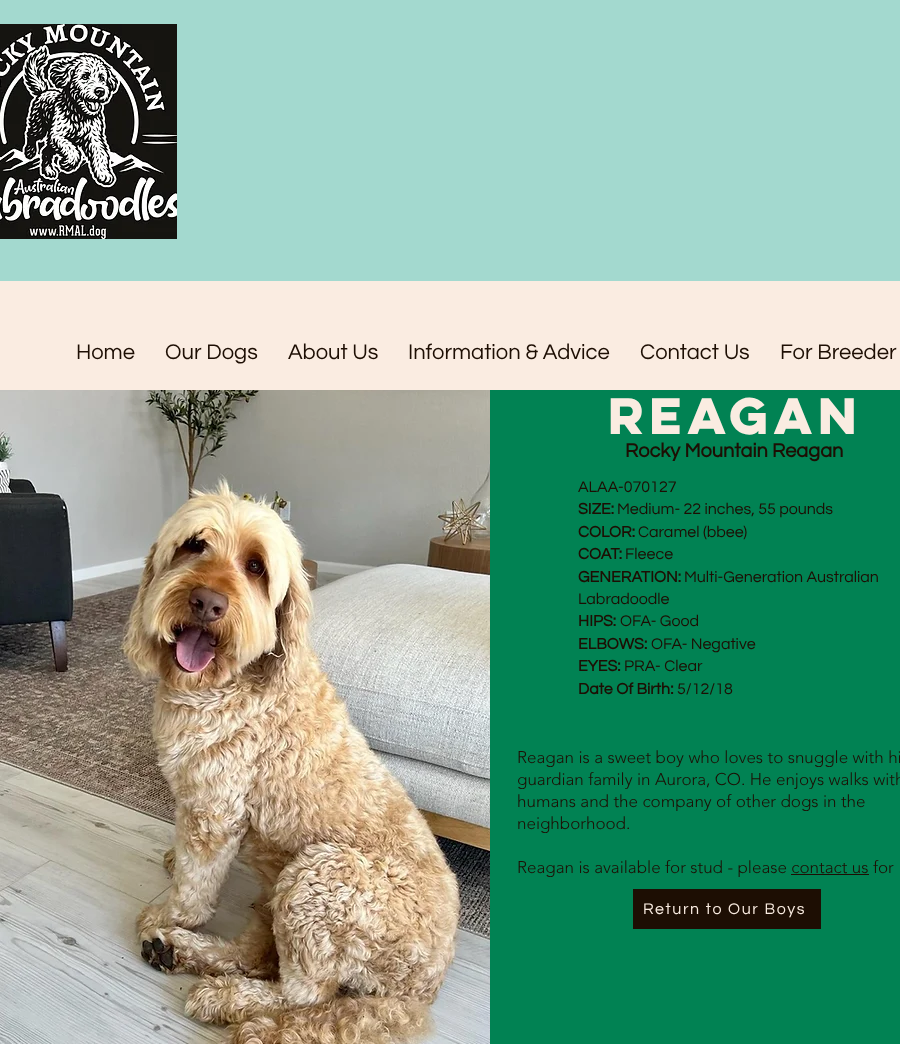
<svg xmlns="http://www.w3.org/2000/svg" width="900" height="1044">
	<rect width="100%" height="100%" fill="#FFFFFF" />
	<rect x="0" y="0" width="900" height="281" fill="#A3D9CF" />
	<image x="0" y="24" width="177" height="215" href="assets/img1.png" />
	<rect x="0" y="281" width="900" height="109" fill="#FAECE1" />
	<g font-family="Questrial" font-size="22" fill="#1D0E03">
		<text x="76" y="359">Home</text>
		<text x="165" y="359">Our Dogs</text>
		<text x="288" y="359">About Us</text>
		<text x="408" y="359">Information &amp; Advice</text>
		<text x="640" y="359">Contact Us</text>
		<text x="780" y="359">For Breeder</text>
	</g>
	<image x="0" y="390" width="490" height="654" href="assets/img2.png" />
	<rect x="490" y="390" width="410" height="654" fill="#018253" />
	<text x="608" y="434" font-family="'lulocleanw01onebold'" font-size="46" font-weight="700" letter-spacing="-4.5" fill="#FAECE1">REAGAN</text>
	<text x="625" y="457" font-family="Questrial" font-size="20" font-weight="700" fill="#1D0E03">Rocky Mountain Reagan</text>
	<text x="578" y="492" font-family="Questrial" font-size="16" fill="#1D0E03">ALAA-070127</text>
	<text x="578" y="514" font-family="Questrial" font-size="16" font-weight="700" fill="#1D0E03">SIZE:</text>
	<text x="617" y="514" font-family="Questrial" font-size="16" fill="#1D0E03">Medium- 22 inches, 55 pounds</text>
	<text x="578" y="537" font-family="Questrial" font-size="16" font-weight="700" fill="#1D0E03">COLOR:</text>
	<text x="638" y="537" font-family="Questrial" font-size="16" fill="#1D0E03">Caramel (bbee)</text>
	<text x="578" y="559" font-family="Questrial" font-size="16" font-weight="700" fill="#1D0E03">COAT:</text>
	<text x="625" y="559" font-family="Questrial" font-size="16" fill="#1D0E03">Fleece</text>
	<text x="578" y="582" font-family="Questrial" font-size="16" font-weight="700" fill="#1D0E03">GENERATION:</text>
	<g font-family="Questrial" font-size="16" fill="#1D0E03">
		<text x="684" y="582">Multi-Generation Australian</text>
		<text x="578" y="604">Labradoodle</text>
	</g>
	<text x="578" y="626" font-family="Questrial" font-size="16" font-weight="700" fill="#1D0E03">HIPS:</text>
	<text x="620" y="626" font-family="Questrial" font-size="16" fill="#1D0E03">OFA- Good</text>
	<text x="578" y="649" font-family="Questrial" font-size="16" font-weight="700" fill="#1D0E03">ELBOWS:</text>
	<text x="651" y="649" font-family="Questrial" font-size="16" fill="#1D0E03">OFA- Negative</text>
	<text x="578" y="671" font-family="Questrial" font-size="16" font-weight="700" fill="#1D0E03">EYES:</text>
	<text x="624" y="671" font-family="Questrial" font-size="16" fill="#1D0E03">PRA- Clear</text>
	<text x="578" y="694" font-family="Questrial" font-size="16" font-weight="700" fill="#1D0E03">Date Of Birth:</text>
	<text x="677" y="694" font-family="Questrial" font-size="16" fill="#1D0E03">5/12/18</text>
	<g font-family="'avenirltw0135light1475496'" font-size="17" font-weight="300" fill="#1D0E03">
		<text x="517" y="763">Reagan is a sweet boy who loves to snuggle with hi</text>
		<text x="517" y="785">guardian family in Aurora, CO. He enjoys walks with</text>
		<text x="517" y="807">humans and the company of other dogs in the</text>
		<text x="517" y="829">neighborhood.</text>
		<text x="517" y="873">Reagan is available for stud - please contact us for</text>
	</g>
	<rect x="791" y="874" width="78" height="1" fill="#1D0E03" />
	<rect x="633" y="889" width="188" height="40" fill="#1D0E03" />
	<text x="643" y="914" font-family="Questrial" font-size="16" letter-spacing="1.6" fill="#FAECE1">Return to Our Boys</text>
</svg>
